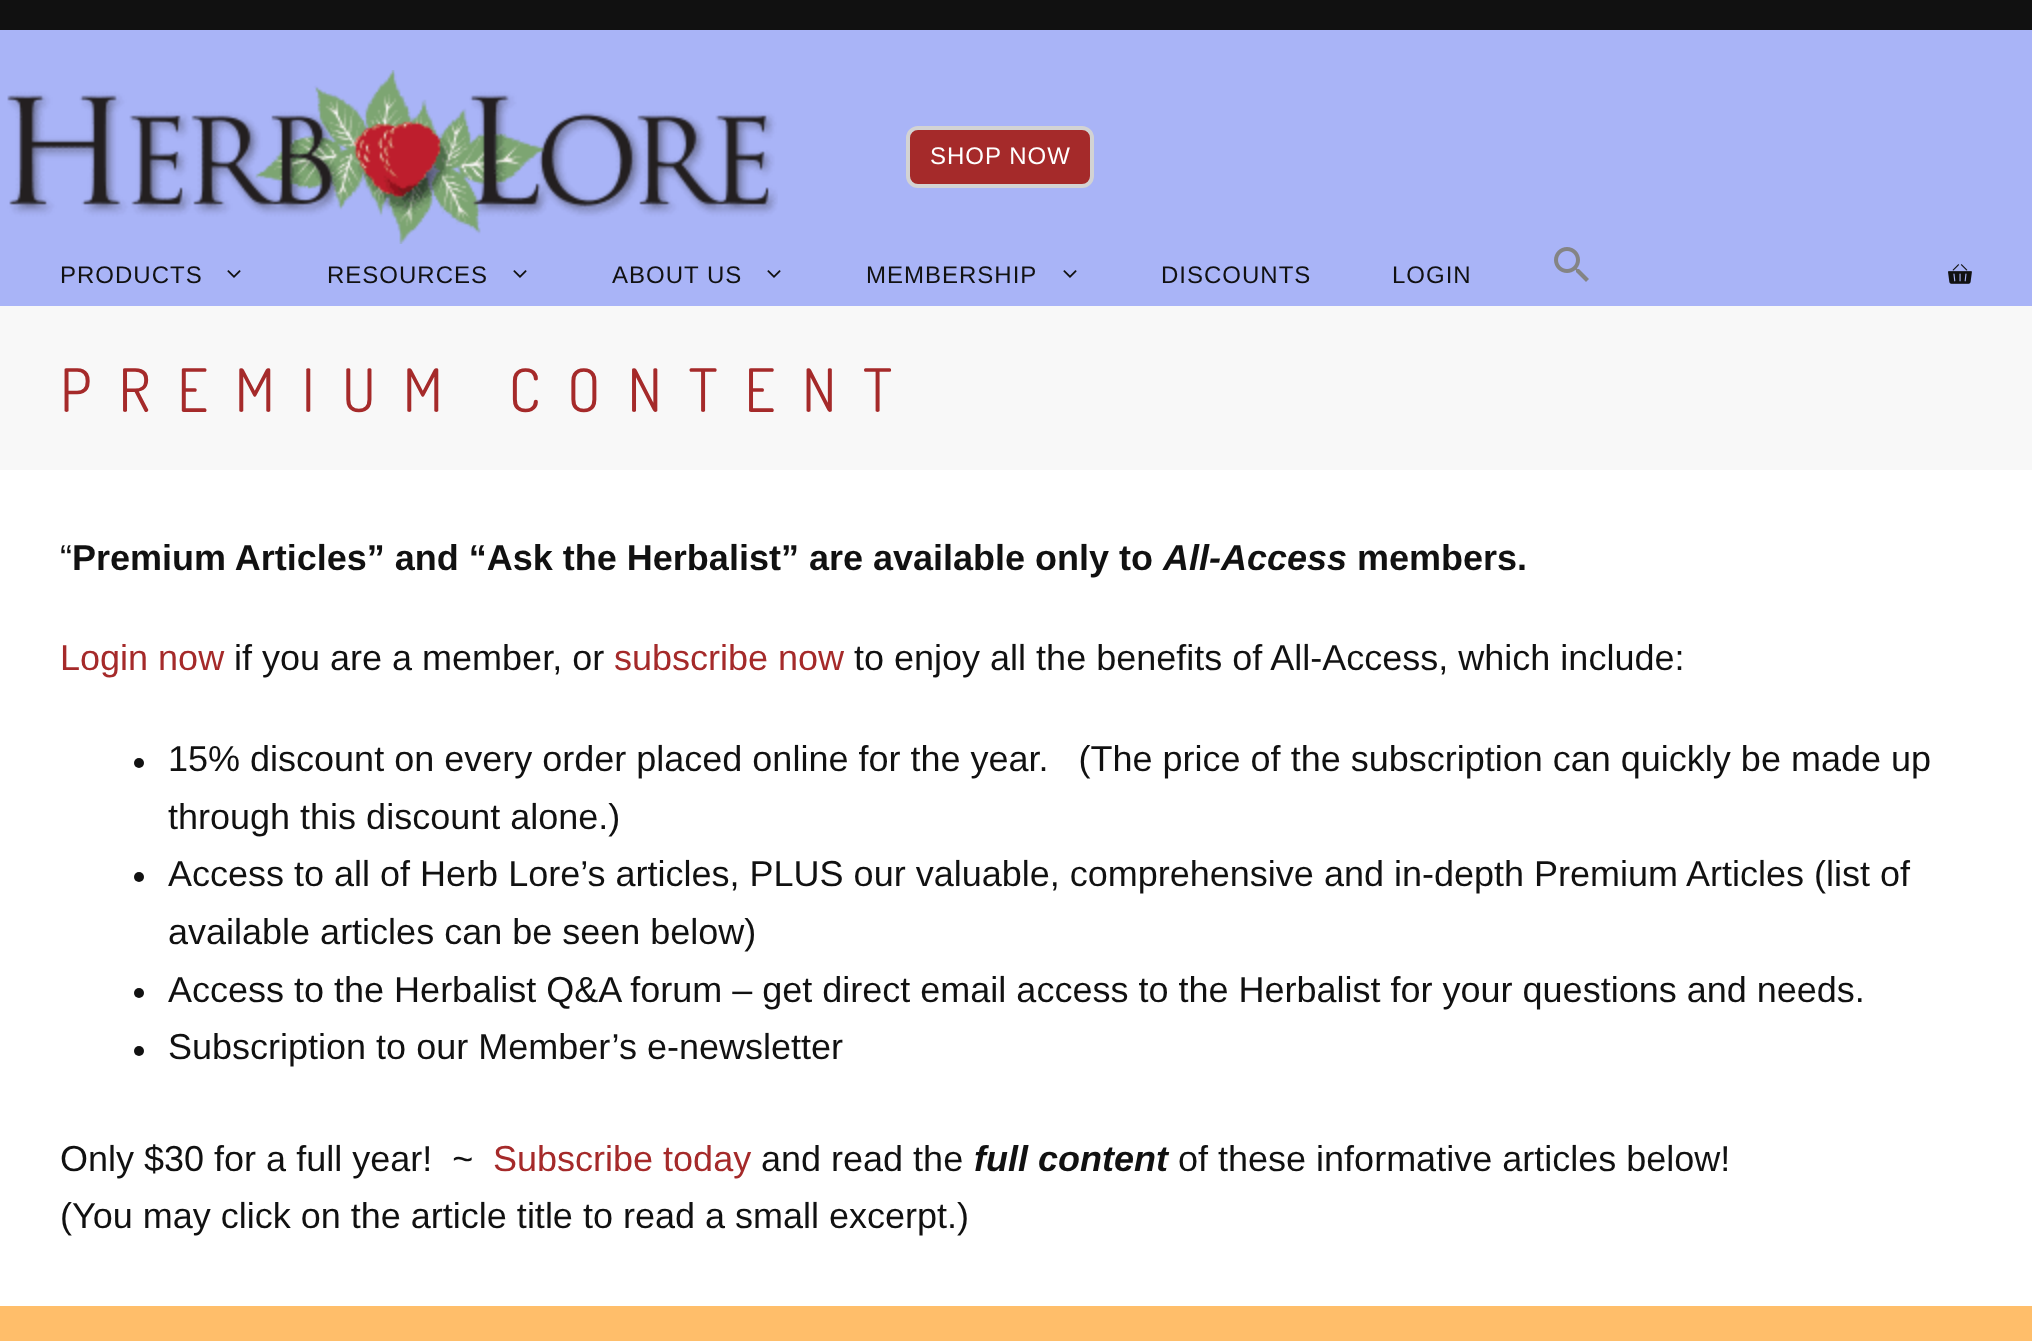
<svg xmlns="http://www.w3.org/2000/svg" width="2032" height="1341">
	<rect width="100%" height="100%" fill="#FFFFFF" />
	<rect x="0" y="0" width="2032" height="30" fill="#111111" />
	<rect x="0" y="30" width="2032" height="276" fill="#A9B4F7" />
	<image x="7" y="70" width="771" height="174" href="assets/img1.png" />
	<rect x="908" y="128" width="184" height="58" rx="10" fill="#A52A2A" stroke="#D3D3D3" stroke-width="4" />
	<text x="930" y="164" font-family="Liberation Sans" font-size="24" letter-spacing="1" fill="#FFFFFF">SHOP NOW</text>
	<text x="60" y="283" font-family="Liberation Sans" font-size="24" letter-spacing="1" fill="#111111">PRODUCTS</text>
	<image x="227" y="270" width="14" height="8" href="assets/img2.png" />
	<text x="327" y="283" font-family="Liberation Sans" font-size="24" letter-spacing="1" fill="#111111">RESOURCES</text>
	<image x="513" y="270" width="14" height="8" href="assets/img2.png" />
	<text x="612" y="283" font-family="Liberation Sans" font-size="24" letter-spacing="1" fill="#111111">ABOUT US</text>
	<image x="767" y="270" width="14" height="8" href="assets/img2.png" />
	<text x="866" y="283" font-family="Liberation Sans" font-size="24" letter-spacing="1" fill="#111111">MEMBERSHIP</text>
	<image x="1063" y="270" width="14" height="8" href="assets/img2.png" />
	<g font-family="Liberation Sans" font-size="24" letter-spacing="1" fill="#111111">
		<text x="1161" y="283">DISCOUNTS</text>
		<text x="1392" y="283">LOGIN</text>
	</g>
	<image x="1554" y="247" width="35" height="35" href="assets/img3.png" />
	<image x="1948" y="264" width="24" height="20" href="assets/img4.png" />
	<rect x="0" y="306" width="2032" height="164" fill="#F8F8F8" />
	<text x="60" y="412" font-family="Dosis" font-size="60" letter-spacing="27" fill="#A52A2A">PREMIUM CONTENT</text>
	<text x="60" y="570" font-family="Liberation Sans" font-size="36" fill="#111111">“</text>
	<text x="72" y="570" font-family="Liberation Sans" font-size="36" font-weight="700" fill="#111111">Premium Articles” and “Ask the Herbalist” are available only to</text>
	<text x="1163" y="570" font-family="Liberation Sans" font-size="36" font-weight="700" font-style="italic" fill="#111111">All-Access</text>
	<text x="1357" y="570" font-family="Liberation Sans" font-size="36" font-weight="700" fill="#111111">members.</text>
	<text x="60" y="670" font-family="Liberation Sans" font-size="36" fill="#A52A2A">Login now</text>
	<text x="234" y="670" font-family="Liberation Sans" font-size="36" fill="#111111">if you are a member, or</text>
	<text x="614" y="670" font-family="Liberation Sans" font-size="36" fill="#A52A2A">subscribe now</text>
	<text x="854" y="670" font-family="Liberation Sans" font-size="36" fill="#111111">to enjoy all the benefits of All-Access, which include:</text>
	<circle cx="139" cy="763" r="5" fill="#111111" />
	<g font-family="Liberation Sans" font-size="36" fill="#111111">
		<text x="168" y="771" xml:space="preserve">15% discount on every order placed online for the year.   (The price of the subscription can quickly be made up</text>
		<text x="168" y="829">through this discount alone.)</text>
	</g>
	<circle cx="139" cy="877" r="5" fill="#111111" />
	<g font-family="Liberation Sans" font-size="36" fill="#111111">
		<text x="168" y="886">Access to all of Herb Lore’s articles, PLUS our valuable, comprehensive and in-depth Premium Articles (list of</text>
		<text x="168" y="944">available articles can be seen below)</text>
	</g>
	<circle cx="139" cy="993" r="5" fill="#111111" />
	<text x="168" y="1002" font-family="Liberation Sans" font-size="36" fill="#111111">Access to the Herbalist Q&amp;A forum – get direct email access to the Herbalist for your questions and needs.</text>
	<circle cx="139" cy="1051" r="5" fill="#111111" />
	<g font-family="Liberation Sans" font-size="36" fill="#111111">
		<text x="168" y="1059">Subscription to our Member’s e-newsletter</text>
		<text x="60" y="1171" xml:space="preserve">Only $30 for a full year!  ~</text>
	</g>
	<text x="493" y="1171" font-family="Liberation Sans" font-size="36" fill="#A52A2A">Subscribe today</text>
	<text x="761" y="1171" font-family="Liberation Sans" font-size="36" fill="#111111">and read the</text>
	<text x="974" y="1171" font-family="Liberation Sans" font-size="36" font-weight="700" font-style="italic" fill="#111111">full content</text>
	<g font-family="Liberation Sans" font-size="36" fill="#111111">
		<text x="1178" y="1171">of these informative articles below!</text>
		<text x="60" y="1228">(You may click on the article title to read a small excerpt.)</text>
	</g>
	<rect x="0" y="1306" width="2032" height="35" fill="#FFBE6A" />
</svg>
